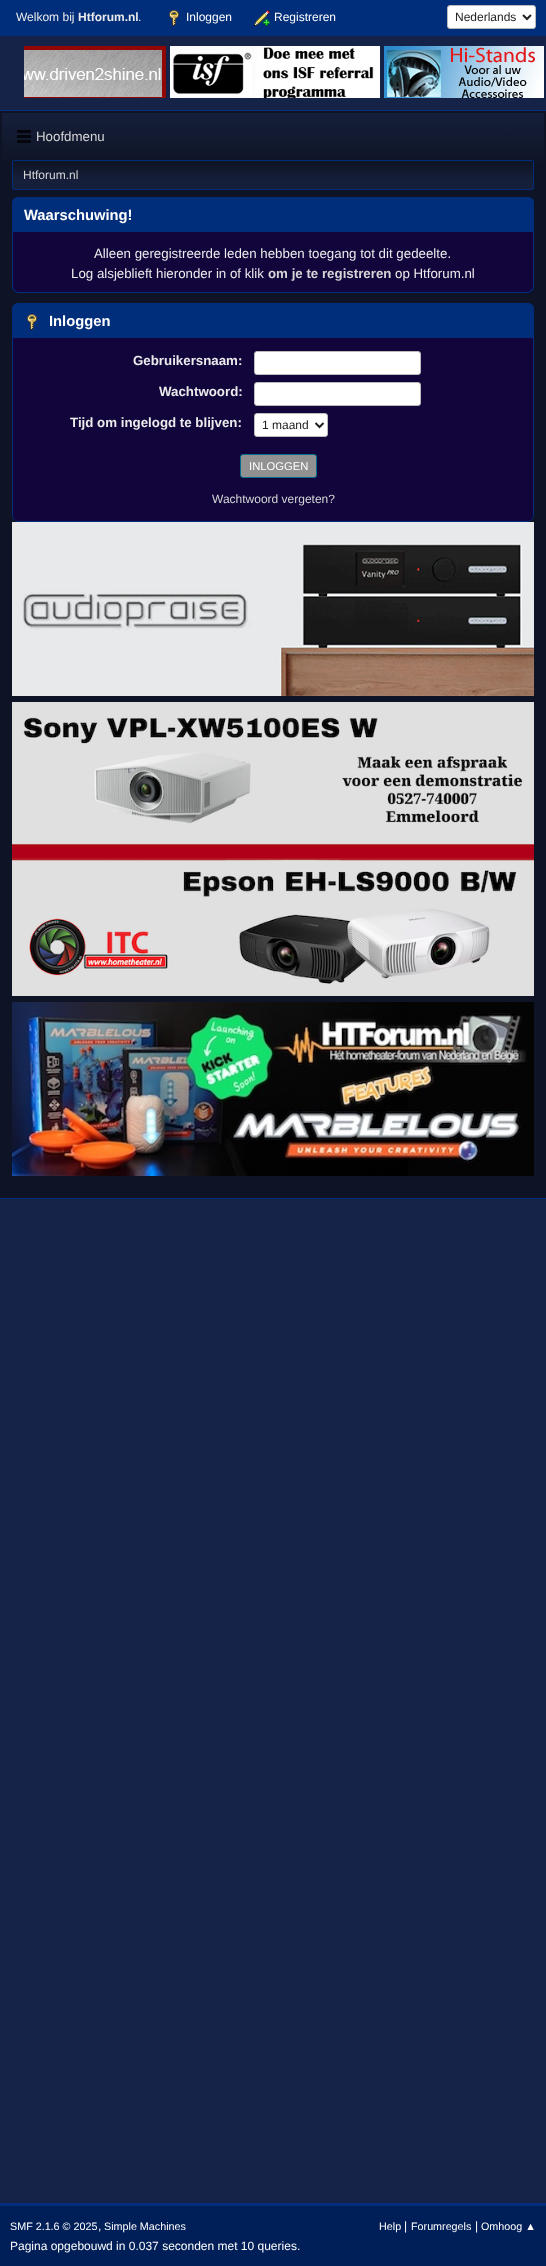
<svg xmlns="http://www.w3.org/2000/svg" width="546" height="2266">
	<defs>
		<linearGradient id="g1" gradientUnits="userSpaceOnUse" x1="273" y1="113" x2="273" y2="192"><stop offset="0" stop-color="#161F3A" /><stop offset="0.7" stop-color="#0E1425" /></linearGradient>
		<clipPath id="clip1"><rect x="12" y="160" width="522" height="30" rx="2" /></clipPath>
		<linearGradient id="g2" gradientUnits="userSpaceOnUse" x1="273" y1="161" x2="273" y2="189"><stop offset="0" stop-color="#0E1425" /><stop offset="0.7" stop-color="#161F3A" /></linearGradient>
	</defs>
	<rect width="100%" height="100%" fill="#152348" />
	<rect x="0" y="0" width="546" height="36" fill="#002E7A" />
	<text x="16" y="21" font-family="Liberation Sans" font-size="12" fill="#EBEBEB">Welkom bij</text>
	<text x="78" y="21" font-family="Liberation Sans" font-size="12" font-weight="700" fill="#EBEBEB">Htforum.nl</text>
	<text x="138" y="21" font-family="Liberation Sans" font-size="12" fill="#EBEBEB">.</text>
	<image x="169" y="10" width="10" height="16" href="assets/img1.png" />
	<text x="186" y="21" font-family="Liberation Sans" font-size="12" fill="#FFFFFF">Inloggen</text>
	<image x="254" y="10" width="16" height="16" href="assets/img2.png" />
	<text x="274" y="21" font-family="Liberation Sans" font-size="12" fill="#FFFFFF">Registreren</text>
	<rect x="447.5" y="5.5" width="88" height="23" rx="2.5" fill="#FFFFFF" stroke="#BBBBBB" />
	<path d="M523 15L527 19L531 15" fill="none" stroke="#222222" stroke-width="2" />
	<text x="455" y="21" font-family="Liberation Sans" font-size="12" fill="#222222">Nederlands</text>
	<image x="24" y="46" width="520" height="52" href="assets/img3.png" />
	<rect x="0" y="111" width="546" height="1087" fill="#0E1425" />
	<rect x="0" y="110" width="546" height="1" fill="#002E7A" />
	<rect x="0" y="1198" width="546" height="1" fill="#002E7A" />
	<rect x="2" y="113" width="542" height="49" fill="url(#g1)" />
	<image x="17" y="130" width="14" height="13" href="assets/img4.png" />
	<text x="36" y="141" font-family="Liberation Sans" font-size="13.3" fill="#D6D6D6">Hoofdmenu</text>
	<g clip-path="url(#clip1)">
		<rect x="12" y="161" width="522" height="28" fill="url(#g2)" />
	</g>
	<rect x="12.5" y="160.5" width="521" height="29" rx="1.5" fill="none" stroke="#002E7A" />
	<text x="23" y="179" font-family="Liberation Sans" font-size="12" fill="#D6D6D6">Htforum.nl</text>
	<path d="M18 197H528C531.5 197 534 199.5 534 203V232H12V203C12 199.5 14.5 197 18 197Z" fill="#002E7A" />
	<text x="24" y="220" font-family="Liberation Sans" font-size="14.75" font-weight="700" fill="#FFFFFF">Waarschuwing!</text>
	<path d="M12 232H534V286C534 290 531 293 527 293H19C15 293 12 290 12 286Z" fill="#11053B" />
	<path d="M12 232H534V286C534 290 531 293 527 293H19C15 293 12 290 12 286ZM13 232H533V286C533 289 530 292 527 292H19C16 292 13 289 13 286Z" fill="#002E7A" fill-rule="evenodd" />
	<g font-family="Liberation Sans" font-size="13.3" fill="#EBEBEB">
		<text x="94" y="258">Alleen geregistreerde leden hebben toegang tot dit gedeelte.</text>
		<text x="71" y="278">Log alsjeblieft hieronder in of klik</text>
	</g>
	<text x="268" y="278" font-family="Liberation Sans" font-size="13.3" font-weight="700" fill="#D6D6D6">om je te registreren</text>
	<text x="395" y="278" font-family="Liberation Sans" font-size="13.3" fill="#EBEBEB">op Htforum.nl</text>
	<path d="M18 303H528C531.5 303 534 305.5 534 309V338H12V309C12 305.5 14.5 303 18 303Z" fill="#002E7A" />
	<image x="27" y="314" width="10" height="16" href="assets/img1.png" />
	<text x="49" y="326" font-family="Liberation Sans" font-size="14.75" font-weight="700" fill="#FFFFFF">Inloggen</text>
	<path d="M12.5 337.5H533.5V515C533.5 518.5 530.5 521.5 527 521.5H19C15.5 521.5 12.5 518.5 12.5 515Z" fill="#11053B" stroke="#002E7A" />
	<text x="133" y="365" font-family="Liberation Sans" font-size="13.3" font-weight="700" fill="#EBEBEB">Gebruikersnaam:</text>
	<rect x="254.5" y="351.5" width="166" height="23" rx="2.5" fill="#FFFFFF" stroke="#BBBBBB" />
	<text x="159" y="396" font-family="Liberation Sans" font-size="13.3" font-weight="700" fill="#EBEBEB">Wachtwoord:</text>
	<rect x="254.5" y="382.5" width="166" height="23" rx="2.5" fill="#FFFFFF" stroke="#BBBBBB" />
	<text x="70" y="427" font-family="Liberation Sans" font-size="13.3" font-weight="700" fill="#EBEBEB">Tijd om ingelogd te blijven:</text>
	<rect x="254.5" y="413.5" width="73" height="23" rx="2.5" fill="#FFFFFF" stroke="#BBBBBB" />
	<path d="M315.5 423L319.5 427L323.5 423" fill="none" stroke="#222222" stroke-width="2" />
	<text x="262" y="429" font-family="Liberation Sans" font-size="12" fill="#222222">1 maand</text>
	<rect x="240.5" y="454.5" width="76" height="23" rx="2.5" fill="#919191" stroke="#006D8F" />
	<text x="249" y="470" font-family="Liberation Sans" font-size="11.25" fill="#FFFFFF">INLOGGEN</text>
	<text x="212" y="503" font-family="Liberation Sans" font-size="12" fill="#D6D6D6">Wachtwoord vergeten?</text>
	<image x="12" y="522" width="522" height="174" href="assets/img5.png" />
	<image x="12" y="702" width="522" height="294" href="assets/img6.png" />
	<image x="12" y="1002" width="522" height="174" href="assets/img7.png" />
	<rect x="0" y="2206" width="546" height="60" fill="#001E57" />
	<rect x="0" y="2203" width="546" height="3" fill="#002E7A" />
	<text x="10" y="2230" font-family="Liberation Sans" font-size="10.75" fill="#FFFFFF">SMF 2.1.6 © 2025</text>
	<text x="98" y="2230" font-family="Liberation Sans" font-size="12" fill="#FFFFFF">,</text>
	<g font-family="Liberation Sans" font-size="10.75" fill="#FFFFFF">
		<text x="104" y="2230">Simple Machines</text>
		<text x="379" y="2230">Help</text>
	</g>
	<text x="404" y="2230" font-family="Liberation Sans" font-size="12" fill="#FFFFFF">|</text>
	<text x="411" y="2230" font-family="Liberation Sans" font-size="10.75" fill="#FFFFFF">Forumregels</text>
	<text x="475" y="2230" font-family="Liberation Sans" font-size="12" fill="#FFFFFF">|</text>
	<text x="481" y="2230" font-family="Liberation Sans" font-size="10.75" fill="#FFFFFF">Omhoog ▲</text>
	<text x="10" y="2250" font-family="Liberation Sans" font-size="12" fill="#FFFFFF">Pagina opgebouwd in 0.037 seconden met 10 queries.</text>
</svg>
